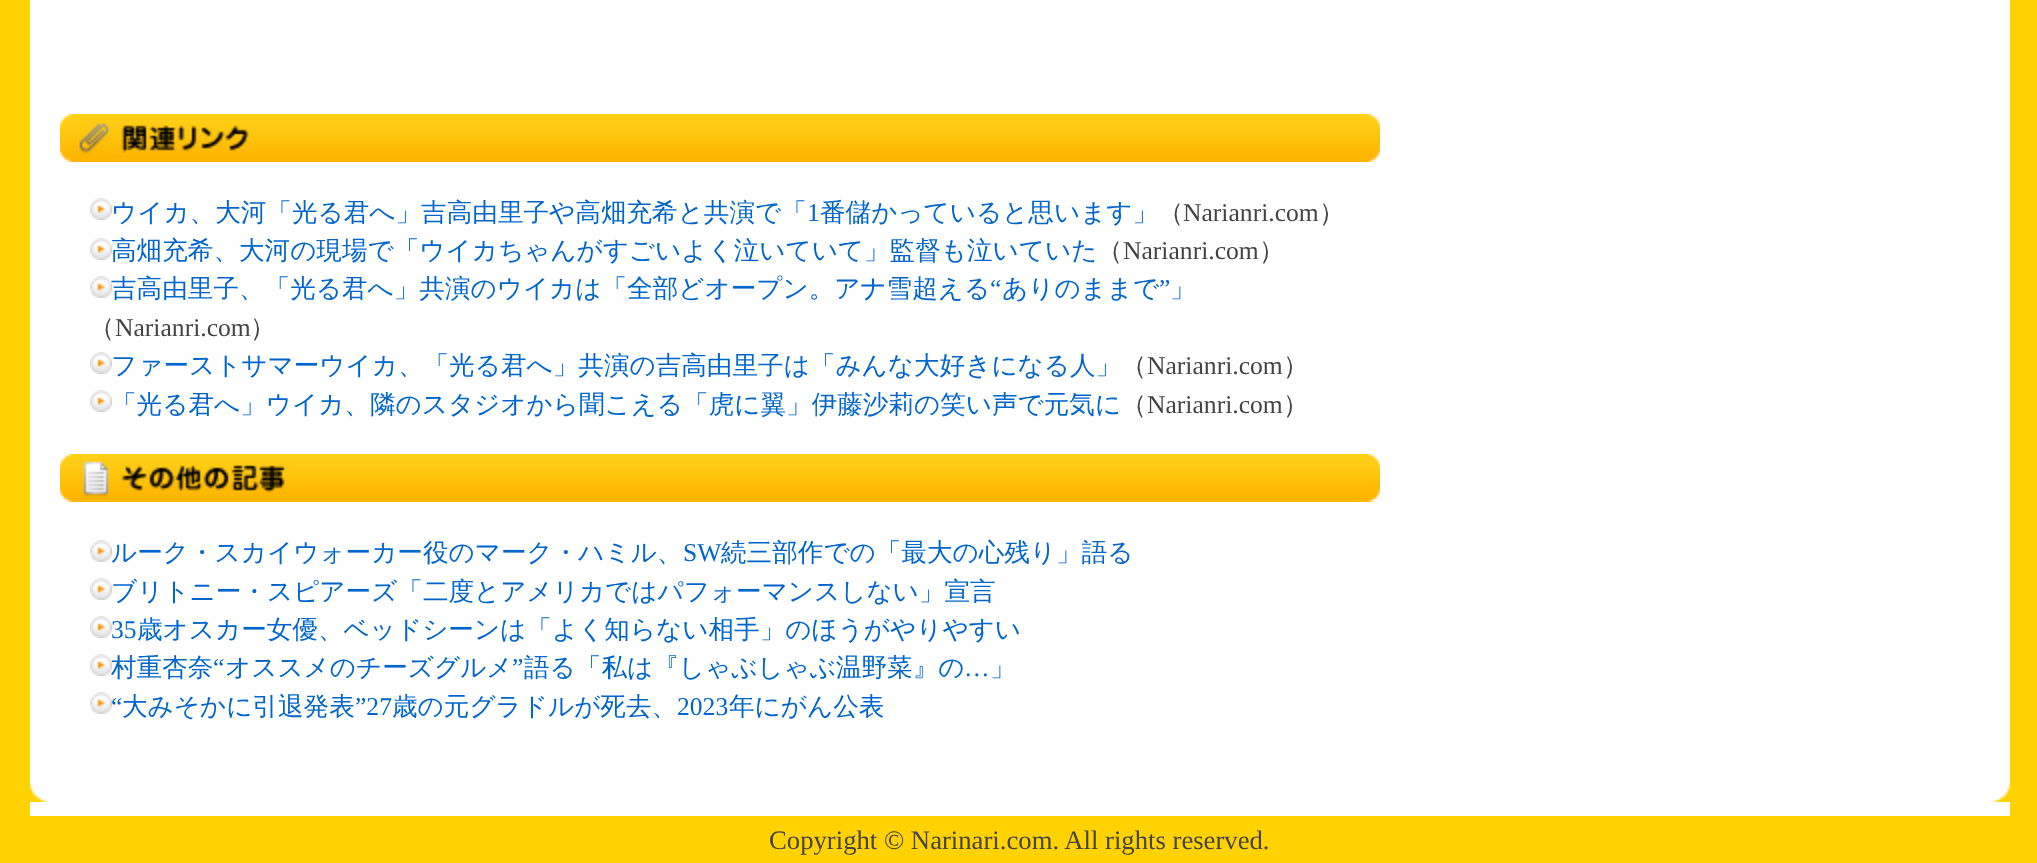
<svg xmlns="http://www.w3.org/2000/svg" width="2037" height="863">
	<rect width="100%" height="100%" fill="#FFD200" />
	<rect x="30" y="0" width="1980" height="816" fill="#FFFFFF" />
	<image x="60" y="114" width="1320" height="48" href="assets/img1.png" />
	<image x="90" y="198" width="22" height="22" href="assets/img2.png" />
	<text x="111" y="221" font-family="WenQuanYi Zen Hei" font-size="25.6" font-weight="500" fill="#0066CC">ウイカ、大河「光る君へ」吉高由里子や高畑充希と共演で「</text>
	<text x="807" y="221" font-family="Liberation Serif" font-size="25.6" fill="#0066CC">1</text>
	<text x="820" y="221" font-family="WenQuanYi Zen Hei" font-size="25.6" font-weight="500" fill="#0066CC">番儲かっていると思います」</text>
	<text x="1158" y="221" font-family="WenQuanYi Zen Hei" font-size="25.6" font-weight="500" fill="#444444">（</text>
	<text x="1183" y="221" font-family="Liberation Serif" font-size="25.6" fill="#444444">Narianri.com</text>
	<text x="1319" y="221" font-family="WenQuanYi Zen Hei" font-size="25.6" font-weight="500" fill="#444444">）</text>
	<image x="90" y="238" width="22" height="22" href="assets/img2.png" />
	<text x="111" y="259" font-family="WenQuanYi Zen Hei" font-size="25.6" font-weight="500" fill="#0066CC">高畑充希、大河の現場で「ウイカちゃんがすごいよく泣いていて」監督も泣いていた</text>
	<text x="1097" y="259" font-family="WenQuanYi Zen Hei" font-size="25.6" font-weight="500" fill="#444444">（</text>
	<text x="1123" y="259" font-family="Liberation Serif" font-size="25.6" fill="#444444">Narianri.com</text>
	<text x="1259" y="259" font-family="WenQuanYi Zen Hei" font-size="25.6" font-weight="500" fill="#444444">）</text>
	<image x="90" y="276" width="22" height="22" href="assets/img2.png" />
	<text x="111" y="297" font-family="WenQuanYi Zen Hei" font-size="25.6" font-weight="500" fill="#0066CC">吉高由里子、「光る君へ」共演のウイカは「全部どオープン。アナ雪超える</text>
	<text x="990" y="297" font-family="Liberation Serif" font-size="25.6" fill="#0066CC">“</text>
	<text x="1002" y="297" font-family="WenQuanYi Zen Hei" font-size="25.6" font-weight="500" fill="#0066CC">ありのままで</text>
	<text x="1159" y="297" font-family="Liberation Serif" font-size="25.6" fill="#0066CC">”</text>
	<text x="1170" y="297" font-family="WenQuanYi Zen Hei" font-size="25.6" font-weight="500" fill="#0066CC">」</text>
	<text x="89" y="336" font-family="WenQuanYi Zen Hei" font-size="25.6" font-weight="500" fill="#444444">（</text>
	<text x="115" y="336" font-family="Liberation Serif" font-size="25.6" fill="#444444">Narianri.com</text>
	<text x="250" y="336" font-family="WenQuanYi Zen Hei" font-size="25.6" font-weight="500" fill="#444444">）</text>
	<image x="90" y="352" width="22" height="22" href="assets/img2.png" />
	<text x="111" y="374" font-family="WenQuanYi Zen Hei" font-size="25.6" font-weight="500" fill="#0066CC">ファーストサマーウイカ、「光る君へ」共演の吉高由里子は「みんな大好きになる人」</text>
	<text x="1121" y="374" font-family="WenQuanYi Zen Hei" font-size="25.6" font-weight="500" fill="#444444">（</text>
	<text x="1147" y="374" font-family="Liberation Serif" font-size="25.6" fill="#444444">Narianri.com</text>
	<text x="1283" y="374" font-family="WenQuanYi Zen Hei" font-size="25.6" font-weight="500" fill="#444444">）</text>
	<image x="90" y="390" width="22" height="22" href="assets/img2.png" />
	<text x="111" y="413" font-family="WenQuanYi Zen Hei" font-size="25.6" font-weight="500" fill="#0066CC">「光る君へ」ウイカ、隣のスタジオから聞こえる「虎に翼」伊藤沙莉の笑い声で元気に</text>
	<text x="1121" y="413" font-family="WenQuanYi Zen Hei" font-size="25.6" font-weight="500" fill="#444444">（</text>
	<text x="1147" y="413" font-family="Liberation Serif" font-size="25.6" fill="#444444">Narianri.com</text>
	<text x="1283" y="413" font-family="WenQuanYi Zen Hei" font-size="25.6" font-weight="500" fill="#444444">）</text>
	<image x="60" y="454" width="1320" height="48" href="assets/img3.png" />
	<image x="90" y="540" width="22" height="22" href="assets/img2.png" />
	<text x="111" y="561" font-family="WenQuanYi Zen Hei" font-size="25.6" font-weight="500" fill="#0066CC">ルーク・スカイウォーカー役のマーク・ハミル、</text>
	<text x="683" y="561" font-family="Liberation Serif" font-size="25.6" fill="#0066CC">SW</text>
	<text x="721" y="561" font-family="WenQuanYi Zen Hei" font-size="25.6" font-weight="500" fill="#0066CC">続三部作での「最大の心残り」語る</text>
	<image x="90" y="578" width="22" height="22" href="assets/img2.png" />
	<text x="111" y="600" font-family="WenQuanYi Zen Hei" font-size="25.6" font-weight="500" fill="#0066CC">ブリトニー・スピアーズ「二度とアメリカではパフォーマンスしない」宣言</text>
	<image x="90" y="616" width="22" height="22" href="assets/img2.png" />
	<text x="111" y="638" font-family="Liberation Serif" font-size="25.6" fill="#0066CC">35</text>
	<text x="137" y="638" font-family="WenQuanYi Zen Hei" font-size="25.6" font-weight="500" fill="#0066CC">歳オスカー女優、ベッドシーンは「よく知らない相手」のほうがやりやすい</text>
	<image x="90" y="654" width="22" height="22" href="assets/img2.png" />
	<text x="111" y="676" font-family="WenQuanYi Zen Hei" font-size="25.6" font-weight="500" fill="#0066CC">村重杏奈</text>
	<text x="213" y="676" font-family="Liberation Serif" font-size="25.6" fill="#0066CC">“</text>
	<text x="225" y="676" font-family="WenQuanYi Zen Hei" font-size="25.6" font-weight="500" fill="#0066CC">オススメのチーズグルメ</text>
	<text x="512" y="676" font-family="Liberation Serif" font-size="25.6" fill="#0066CC">”</text>
	<text x="524" y="676" font-family="WenQuanYi Zen Hei" font-size="25.6" font-weight="500" fill="#0066CC">語る「私は『しゃぶしゃぶ温野菜』の</text>
	<text x="964" y="676" font-family="Liberation Serif" font-size="25.6" fill="#0066CC">…</text>
	<text x="990" y="676" font-family="WenQuanYi Zen Hei" font-size="25.6" font-weight="500" fill="#0066CC">」</text>
	<image x="90" y="692" width="22" height="22" href="assets/img2.png" />
	<text x="111" y="715" font-family="Liberation Serif" font-size="25.6" fill="#0066CC">“</text>
	<text x="122" y="715" font-family="WenQuanYi Zen Hei" font-size="25.6" font-weight="500" fill="#0066CC">大みそかに引退発表</text>
	<text x="355" y="715" font-family="Liberation Serif" font-size="25.6" fill="#0066CC">”27</text>
	<text x="392" y="715" font-family="WenQuanYi Zen Hei" font-size="25.6" font-weight="500" fill="#0066CC">歳の元グラドルが死去、</text>
	<text x="677" y="715" font-family="Liberation Serif" font-size="25.6" fill="#0066CC">2023</text>
	<text x="729" y="715" font-family="WenQuanYi Zen Hei" font-size="25.6" font-weight="500" fill="#0066CC">年にがん公表</text>
	<image x="30" y="782" width="1980" height="20" href="assets/img4.png" />
	<text x="769" y="849" font-family="Liberation Serif" font-size="26.7" fill="#444444">Copyright © Narinari.com. All rights reserved.</text>
</svg>
